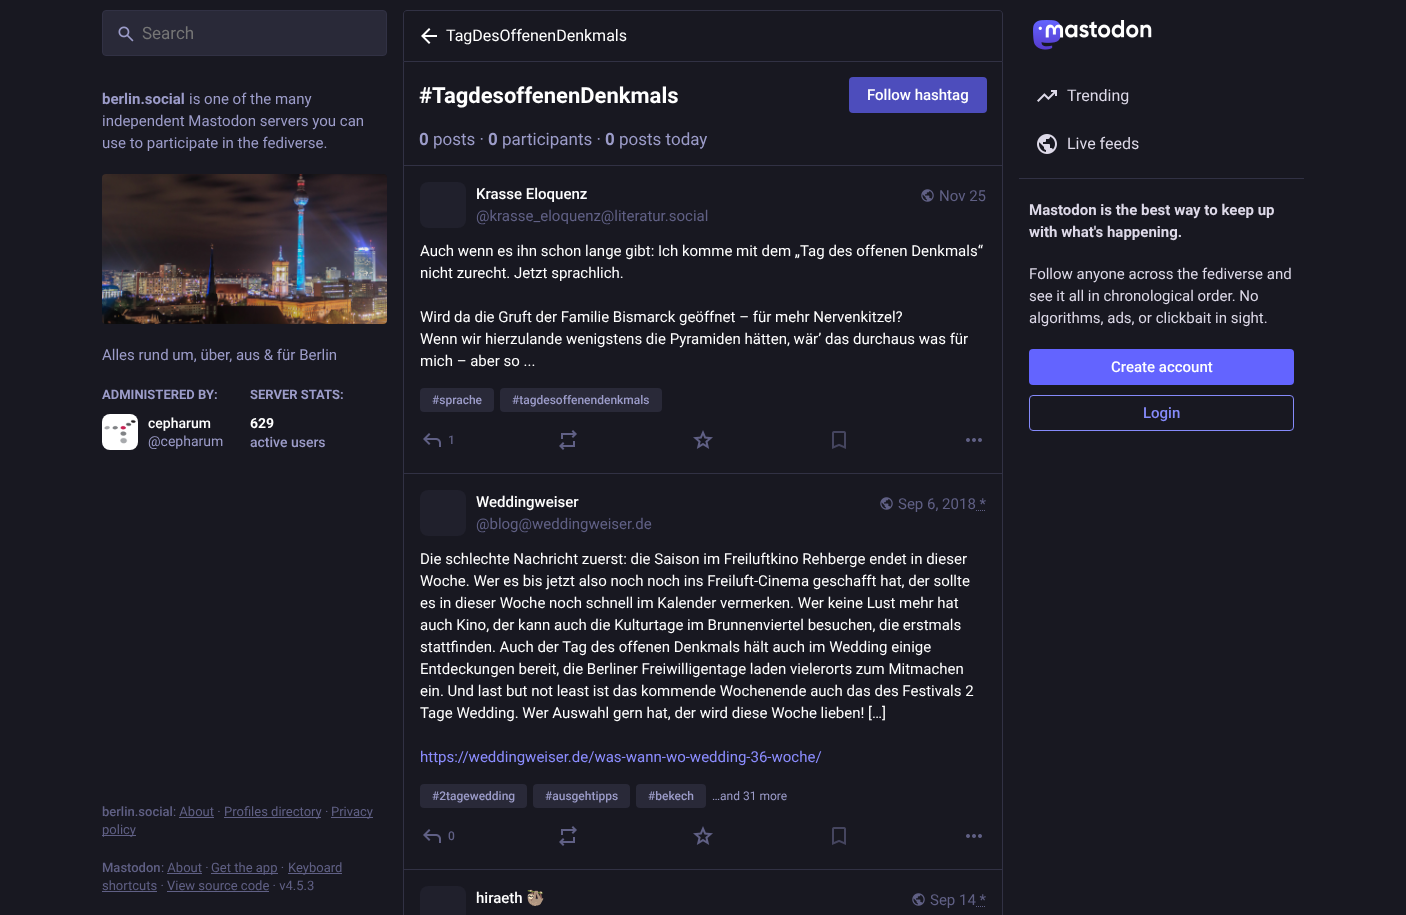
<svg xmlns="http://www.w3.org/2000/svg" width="1406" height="915">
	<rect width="100%" height="100%" fill="#181821" />
	<rect x="102.5" y="10.5" width="284" height="45" rx="3.5" fill="#292938" stroke="#313144" />
	<image x="118" y="26" width="16" height="16" href="assets/img1.png" />
	<text x="142" y="39" font-family="Roboto" font-size="17" fill="#757575">Search</text>
	<text x="102" y="104" font-family="Roboto" font-size="15" font-weight="700" fill="#9C9CC9">berlin.social</text>
	<g font-family="Roboto" font-size="15" fill="#9C9CC9">
		<text x="189" y="104">is one of the many</text>
		<text x="102" y="126">independent Mastodon servers you can</text>
		<text x="102" y="148">use to participate in the fediverse.</text>
	</g>
	<image x="102" y="174" width="285" height="150" href="assets/img2.png" />
	<text x="102" y="360" font-family="Roboto" font-size="15" fill="#9C9CC9">Alles rund um, über, aus &amp; für Berlin</text>
	<text x="102" y="399" font-family="Roboto" font-size="13" font-weight="700" fill="#9C9CC9">ADMINISTERED BY:</text>
	<rect x="102" y="414" width="36" height="36" rx="8" fill="#20202C" />
	<image x="102" y="414" width="36" height="36" href="assets/img3.png" />
	<text x="148" y="428" font-family="Roboto" font-size="14" font-weight="500" fill="#FFFFFF">cepharum</text>
	<text x="148" y="446" font-family="Roboto" font-size="14" fill="#9C9CC9">@cepharum</text>
	<text x="250" y="399" font-family="Roboto" font-size="13" font-weight="700" fill="#9C9CC9">SERVER STATS:</text>
	<text x="250" y="428" font-family="Roboto" font-size="14" font-weight="700" fill="#FFFFFF">629</text>
	<text x="250" y="447" font-family="Roboto" font-size="14" font-weight="500" fill="#9C9CC9">active users</text>
	<text x="102" y="816" font-family="Roboto" font-size="13" font-weight="500" fill="#606085">berlin.social</text>
	<text x="173" y="816" font-family="Roboto" font-size="13" fill="#606085">: About ·</text>
	<rect x="224" y="817" width="97" height="1" fill="#606085" />
	<text x="224" y="816" font-family="Roboto" font-size="13" fill="#606085">Profiles directory ·</text>
	<rect x="331" y="817" width="42" height="1" fill="#606085" />
	<text x="331" y="816" font-family="Roboto" font-size="13" fill="#606085">Privacy</text>
	<rect x="179" y="817" width="35" height="1" fill="#606085" />
	<rect x="102" y="835" width="34" height="1" fill="#606085" />
	<text x="102" y="834" font-family="Roboto" font-size="13" fill="#606085">policy</text>
	<text x="102" y="872" font-family="Roboto" font-size="13" font-weight="500" fill="#606085">Mastodon</text>
	<text x="161" y="872" font-family="Roboto" font-size="13" fill="#606085">: About ·</text>
	<rect x="211" y="873" width="67" height="1" fill="#606085" />
	<text x="211" y="872" font-family="Roboto" font-size="13" fill="#606085">Get the app ·</text>
	<rect x="288" y="873" width="54" height="1" fill="#606085" />
	<text x="288" y="872" font-family="Roboto" font-size="13" fill="#606085">Keyboard</text>
	<rect x="167" y="873" width="35" height="1" fill="#606085" />
	<text x="102" y="890" font-family="Roboto" font-size="13" fill="#606085">shortcuts · View source code · v4.5.3</text>
	<rect x="102" y="891" width="55" height="1" fill="#606085" />
	<rect x="167" y="891" width="102" height="1" fill="#606085" />
	<path d="M407 10.5H999C1001 10.5 1002.5 12 1002.5 14V61.5H403.5V14C403.5 12 405 10.5 407 10.5Z" fill="none" stroke="#313144" />
	<image x="421" y="28" width="16" height="16" href="assets/img4.png" />
	<text x="446" y="41" font-family="Roboto" font-size="16" fill="#FFFFFF">TagDesOffenenDenkmals</text>
	<path d="M403 62H1003V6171C1003 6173 1001 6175 999 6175H407C405 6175 403 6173 403 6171ZM404 62H1002V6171C1002 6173 1001 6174 999 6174H407C405 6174 404 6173 404 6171Z" fill="#313144" fill-rule="evenodd" />
	<rect x="404" y="165" width="598" height="1" fill="#313144" />
	<text x="419" y="103" font-family="Roboto" font-size="22" font-weight="700" fill="#FFFFFF">#TagdesoffenenDenkmals</text>
	<rect x="849" y="77" width="138" height="36" rx="4" fill="#4D4DBC" />
	<text x="867" y="100" font-family="Roboto" font-size="15" font-weight="500" fill="#FFFFFF">Follow hashtag</text>
	<text x="419" y="145" font-family="Roboto" font-size="17" font-weight="700" fill="#9C9CC9">0</text>
	<text x="433" y="145" font-family="Roboto" font-size="17" fill="#9C9CC9">posts ·</text>
	<text x="488" y="145" font-family="Roboto" font-size="17" font-weight="700" fill="#9C9CC9">0</text>
	<text x="502" y="145" font-family="Roboto" font-size="17" fill="#9C9CC9">participants ·</text>
	<text x="605" y="145" font-family="Roboto" font-size="17" font-weight="700" fill="#9C9CC9">0</text>
	<text x="619" y="145" font-family="Roboto" font-size="17" fill="#9C9CC9">posts today</text>
	<rect x="404" y="473" width="598" height="1" fill="#313144" />
	<rect x="420" y="182" width="46" height="46" rx="8" fill="#20202C" />
	<text x="476" y="199" font-family="Roboto" font-size="15" font-weight="500" fill="#FFFFFF">Krasse Eloquenz</text>
	<text x="476" y="221" font-family="Roboto" font-size="15" fill="#606085">@krasse_eloquenz@literatur.social</text>
	<image x="921" y="189" width="13" height="13" href="assets/img5.png" />
	<text x="939" y="201" font-family="Roboto" font-size="15" fill="#606085">Nov 25</text>
	<g font-family="Roboto" font-size="15" fill="#FFFFFF">
		<text x="420" y="256">Auch wenn es ihn schon lange gibt: Ich komme mit dem „Tag des offenen Denkmals“</text>
		<text x="420" y="278">nicht zurecht. Jetzt sprachlich.</text>
		<text x="420" y="322">Wird da die Gruft der Familie Bismarck geöffnet – für mehr Nervenkitzel?</text>
		<text x="420" y="344">Wenn wir hierzulande wenigstens die Pyramiden hätten, wär’ das durchaus was für</text>
		<text x="420" y="366">mich – aber so ...</text>
	</g>
	<rect x="420" y="388" width="74" height="24" rx="4" fill="#292938" />
	<text x="432" y="404" font-family="Roboto" font-size="12" font-weight="500" fill="#9C9CC9">#sprache</text>
	<rect x="500" y="388" width="162" height="24" rx="4" fill="#292938" />
	<text x="512" y="404" font-family="Roboto" font-size="12" font-weight="500" fill="#9C9CC9">#tagdesoffenendenkmals</text>
	<image x="423" y="433" width="18" height="14" href="assets/img6.png" />
	<text x="448" y="444" font-family="Roboto" font-size="12" font-weight="500" fill="#606085">1</text>
	<image x="559" y="430" width="18" height="20" href="assets/img7.png" />
	<image x="693" y="430" width="20" height="19" href="assets/img8.png" />
	<image x="832" y="431" width="14" height="18" href="assets/img9.png" />
	<image x="966" y="438" width="16" height="4" href="assets/img10.png" />
	<rect x="404" y="869" width="598" height="1" fill="#313144" />
	<rect x="420" y="490" width="46" height="46" rx="8" fill="#20202C" />
	<text x="476" y="507" font-family="Roboto" font-size="15" font-weight="500" fill="#FFFFFF">Weddingweiser</text>
	<text x="476" y="529" font-family="Roboto" font-size="15" fill="#606085">@blog@weddingweiser.de</text>
	<image x="880" y="497" width="13" height="13" href="assets/img5.png" />
	<text x="898" y="509" font-family="Roboto" font-size="15" fill="#606085">Sep 6, 2018 *</text>
	<path d="M976 510.5H986" fill="none" stroke="#606085" stroke-dasharray="1 1" />
	<g font-family="Roboto" font-size="15" fill="#FFFFFF">
		<text x="420" y="564">Die schlechte Nachricht zuerst: die Saison im Freiluftkino Rehberge endet in dieser</text>
		<text x="420" y="586">Woche. Wer es bis jetzt also noch noch ins Freiluft-Cinema geschafft hat, der sollte</text>
		<text x="420" y="608">es in dieser Woche noch schnell im Kalender vermerken. Wer keine Lust mehr hat</text>
		<text x="420" y="630">auch Kino, der kann auch die Kulturtage im Brunnenviertel besuchen, die erstmals</text>
		<text x="420" y="652">stattfinden. Auch der Tag des offenen Denkmals hält auch im Wedding einige</text>
		<text x="420" y="674">Entdeckungen bereit, die Berliner Freiwilligentage laden vielerorts zum Mitmachen</text>
		<text x="420" y="696">ein. Und last but not least ist das kommende Wochenende auch das des Festivals 2</text>
		<text x="420" y="718">Tage Wedding. Wer Auswahl gern hat, der wird diese Woche lieben! […]</text>
	</g>
	<text x="420" y="762" font-family="Roboto" font-size="15" fill="#8C8DFF">https://weddingweiser.de/was-wann-wo-wedding-36-woche/</text>
	<rect x="420" y="784" width="107" height="24" rx="4" fill="#292938" />
	<text x="432" y="800" font-family="Roboto" font-size="12" font-weight="500" fill="#9C9CC9">#2tagewedding</text>
	<rect x="533" y="784" width="97" height="24" rx="4" fill="#292938" />
	<text x="545" y="800" font-family="Roboto" font-size="12" font-weight="500" fill="#9C9CC9">#ausgehtipps</text>
	<rect x="636" y="784" width="70" height="24" rx="4" fill="#292938" />
	<text x="648" y="800" font-family="Roboto" font-size="12" font-weight="500" fill="#9C9CC9">#bekech</text>
	<text x="712" y="800" font-family="Roboto" font-size="12" fill="#9C9CC9">…and 31 more</text>
	<image x="423" y="829" width="18" height="14" href="assets/img6.png" />
	<text x="448" y="840" font-family="Roboto" font-size="12" font-weight="500" fill="#606085">0</text>
	<image x="559" y="826" width="18" height="20" href="assets/img7.png" />
	<image x="693" y="826" width="20" height="19" href="assets/img8.png" />
	<image x="832" y="827" width="14" height="18" href="assets/img9.png" />
	<image x="966" y="834" width="16" height="4" href="assets/img10.png" />
	<rect x="420" y="886" width="46" height="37" rx="8" fill="#20202C" />
	<text x="476" y="903" font-family="Roboto" font-size="15" font-weight="500" fill="#FFFFFF">hiraeth</text>
	<text x="526" y="903" font-family="Noto Color Emoji" font-size="15" fill="#FFFFFF">🦥</text>
	<image x="912" y="893" width="13" height="13" href="assets/img5.png" />
	<text x="930" y="905" font-family="Roboto" font-size="15" fill="#606085">Sep 14 *</text>
	<path d="M976 906.5H986" fill="none" stroke="#606085" stroke-dasharray="1 1" />
	<image x="1033" y="20" width="119" height="30" href="assets/img11.png" />
	<image x="1037" y="90" width="20" height="12" href="assets/img12.png" />
	<text x="1067" y="101" font-family="Roboto" font-size="16" fill="#DDD9E8">Trending</text>
	<image x="1037" y="134" width="20" height="20" href="assets/img13.png" />
	<text x="1067" y="149" font-family="Roboto" font-size="16" fill="#DDD9E8">Live feeds</text>
	<rect x="1019" y="178" width="285" height="1" fill="#313144" />
	<g font-family="Roboto" font-size="15" font-weight="700" fill="#DDD9E8">
		<text x="1029" y="215">Mastodon is the best way to keep up</text>
		<text x="1029" y="237">with what's happening.</text>
	</g>
	<g font-family="Roboto" font-size="15" fill="#DDD9E8">
		<text x="1029" y="279">Follow anyone across the fediverse and</text>
		<text x="1029" y="301">see it all in chronological order. No</text>
		<text x="1029" y="323">algorithms, ads, or clickbait in sight.</text>
	</g>
	<rect x="1029" y="349" width="265" height="36" rx="4" fill="#6364FF" />
	<text x="1111" y="372" font-family="Roboto" font-size="15" font-weight="500" fill="#FFFFFF">Create account</text>
	<rect x="1029.5" y="395.5" width="264" height="35" rx="3.5" fill="none" stroke="#858AFA" />
	<text x="1143" y="418" font-family="Roboto" font-size="15" font-weight="500" fill="#858AFA">Login</text>
</svg>
